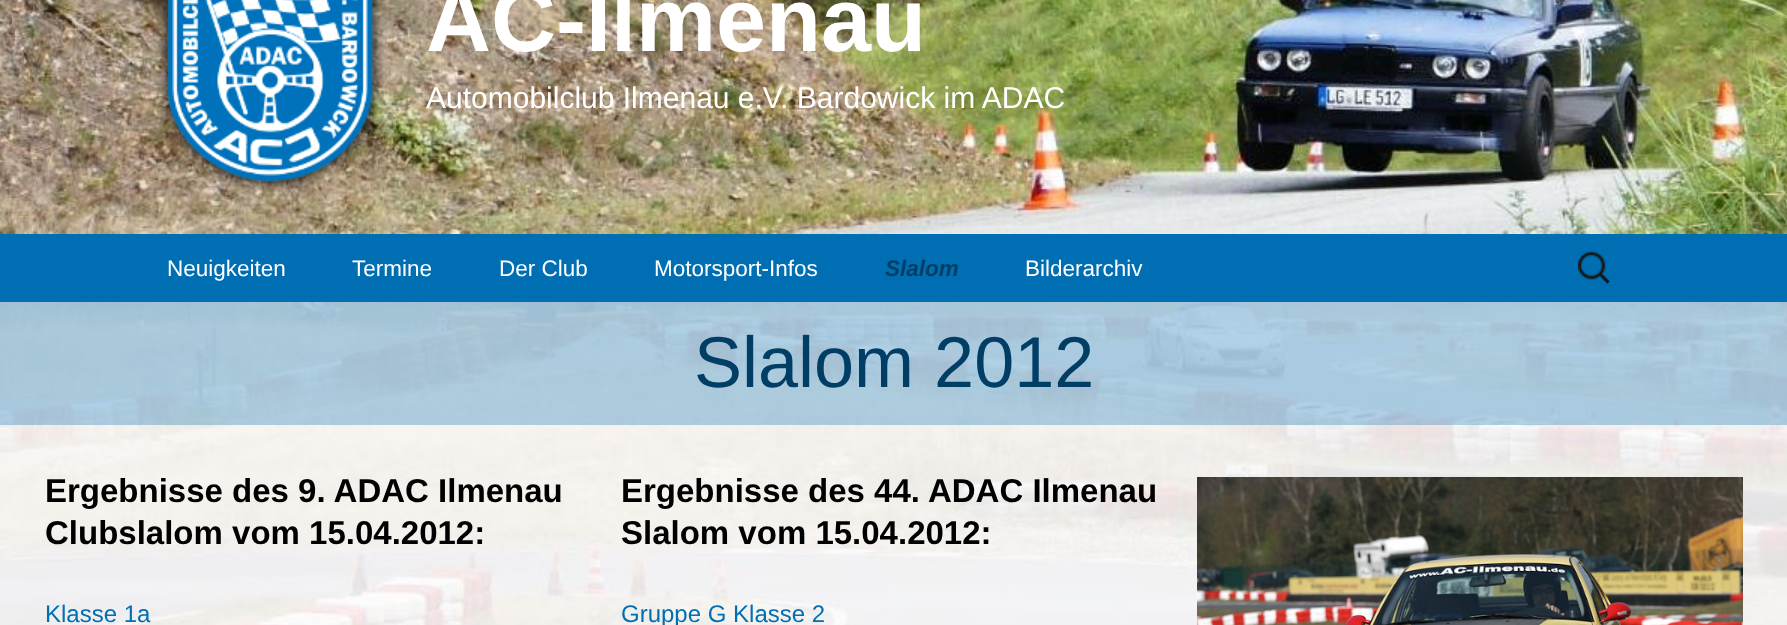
<svg xmlns="http://www.w3.org/2000/svg" width="1787" height="625">
	<rect width="100%" height="100%" fill="#FFFFFF" />
	<image x="0" y="302" width="1787" height="323" href="assets/img1.png" />
	<image x="0" y="0" width="1787" height="234" href="assets/img2.png" />
	<image x="153" y="0" width="234" height="195" href="assets/img3.png" />
	<text x="426" y="51" font-family="Liberation Sans" font-size="90" font-weight="700" fill="#FFFFFF">AC-Ilmenau</text>
	<text x="426" y="108" font-family="Liberation Sans" font-size="30" fill="#FFFFFF">Automobilclub Ilmenau e.V. Bardowick im ADAC</text>
	<rect x="0" y="234" width="1787" height="68" fill="#006EB2" />
	<g font-family="Liberation Sans" font-size="22.5" fill="#FFFFFF">
		<text x="167" y="276">Neuigkeiten</text>
		<text x="352" y="276">Termine</text>
		<text x="499" y="276">Der Club</text>
		<text x="654" y="276">Motorsport-Infos</text>
	</g>
	<text x="885" y="276" font-family="Liberation Sans" font-size="22.5" font-weight="700" font-style="italic" fill="#003E66">Slalom</text>
	<text x="1025" y="276" font-family="Liberation Sans" font-size="22.5" fill="#FFFFFF">Bilderarchiv</text>
	<image x="1578" y="251" width="32" height="33" href="assets/img4.png" />
	<rect x="0" y="302" width="1787" height="123" fill="#006EB2" fill-opacity="0.3" />
	<text x="694" y="387" font-family="Liberation Sans" font-size="72" fill="#003E66">Slalom 2012</text>
	<g font-family="Liberation Sans" font-size="33" font-weight="700" fill="#000000">
		<text x="45" y="502">Ergebnisse des 9. ADAC Ilmenau</text>
		<text x="45" y="544">Clubslalom vom 15.04.2012:</text>
	</g>
	<text x="45" y="622" font-family="Liberation Sans" font-size="24" fill="#006EB2">Klasse 1a</text>
	<g font-family="Liberation Sans" font-size="33" font-weight="700" fill="#000000">
		<text x="621" y="502">Ergebnisse des 44. ADAC Ilmenau</text>
		<text x="621" y="544">Slalom vom 15.04.2012:</text>
	</g>
	<text x="621" y="622" font-family="Liberation Sans" font-size="24" fill="#006EB2">Gruppe G Klasse 2</text>
	<image x="1197" y="477" width="546" height="148" href="assets/img5.png" />
</svg>
